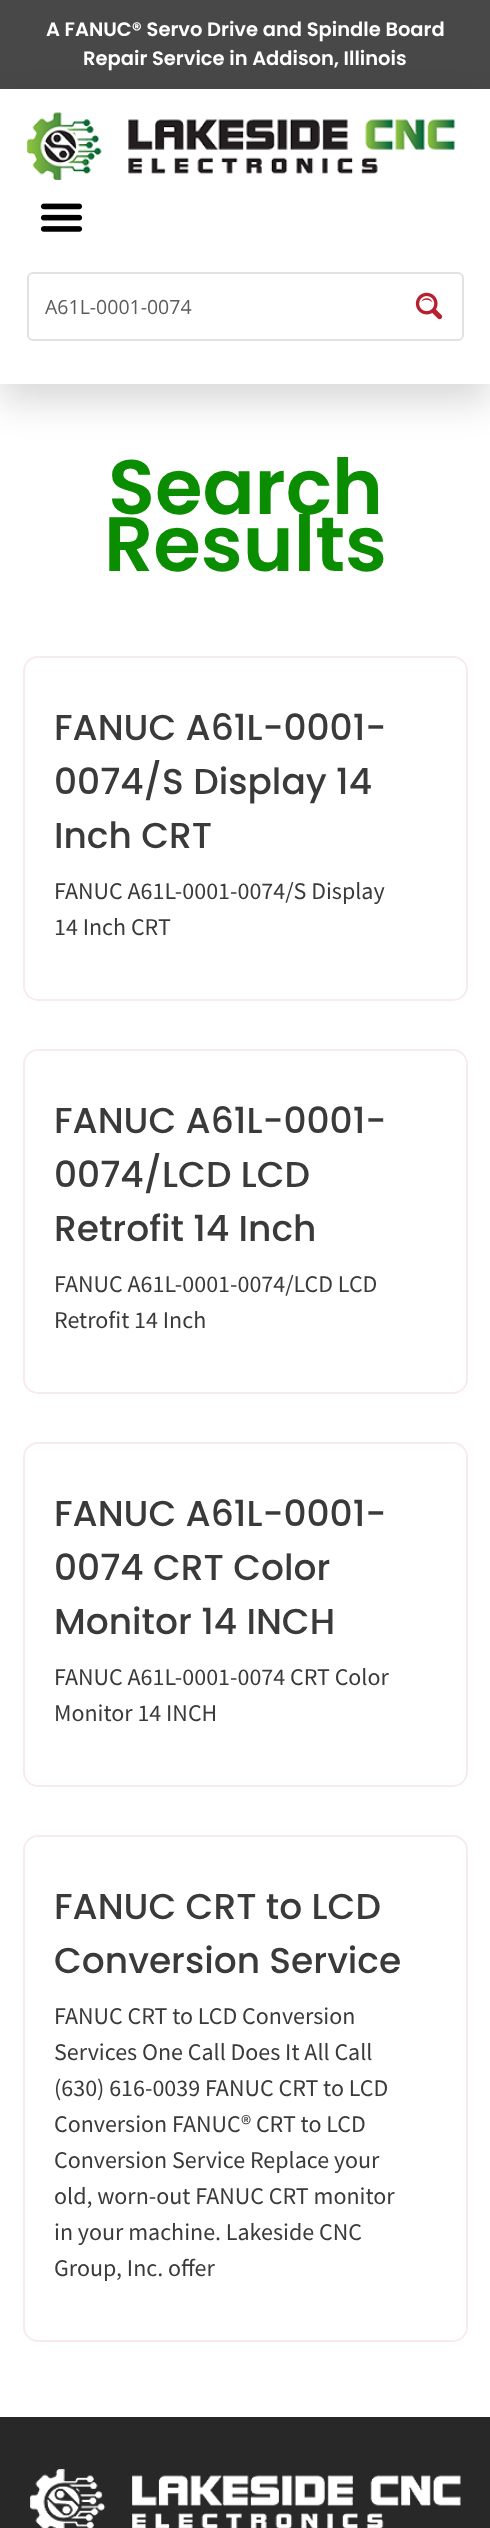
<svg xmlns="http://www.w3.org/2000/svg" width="490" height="2528">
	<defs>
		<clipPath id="clip1"><path d="M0 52H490V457H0ZM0 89H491V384H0Z" clip-rule="evenodd" /></clipPath>
	</defs>
	<rect width="100%" height="100%" fill="#FFFFFF" />
	<rect x="0" y="0" width="490" height="89" fill="#484848" />
	<g font-family="Poppins" font-size="19.5" font-weight="600" fill="#FFFFFF">
		<text x="46" y="36">A FANUC® Servo Drive and Spindle Board</text>
		<text x="83" y="65">Repair Service in Addison, Illinois</text>
	</g>
	<g clip-path="url(#clip1)">
		<rect x="0" y="107" width="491" height="295" fill="#000000" fill-opacity="0.15" filter="blur(18px)" />
	</g>
	<image x="27" y="112" width="428" height="68" href="assets/img1.png" />
	<image x="40" y="203" width="43" height="29" href="assets/img2.png" />
	<rect x="28" y="273" width="435" height="67" rx="5" fill="none" stroke="#3A3A3A" stroke-opacity="0.15" stroke-width="2" />
	<text x="45" y="314" font-family="Open Sans" font-size="19.5" fill="#5C5C5C">A61L-0001-0074</text>
	<image x="415" y="292" width="28" height="28" href="assets/img3.png" />
	<g font-family="Poppins" font-size="77" font-weight="600" fill="#0A8D00">
		<text x="108" y="514">Search</text>
		<text x="104" y="571">Results</text>
	</g>
	<rect x="24" y="657" width="443" height="343" rx="14" fill="none" stroke="#F9EBEC" stroke-width="2" />
	<g font-family="Poppins" font-size="36" font-weight="500" fill="#3A3A3A">
		<text x="54" y="740">FANUC A61L-0001-</text>
		<text x="54" y="794">0074/S Display 14</text>
		<text x="54" y="848">Inch CRT</text>
	</g>
	<g font-family="Source Sans Pro" font-size="24" fill="#3A3A3A">
		<text x="54" y="899">FANUC A61L-0001-0074/S Display</text>
		<text x="54" y="935">14 Inch CRT</text>
	</g>
	<rect x="24" y="1050" width="443" height="343" rx="14" fill="none" stroke="#F9EBEC" stroke-width="2" />
	<g font-family="Poppins" font-size="36" font-weight="500" fill="#3A3A3A">
		<text x="54" y="1133">FANUC A61L-0001-</text>
		<text x="54" y="1187">0074/LCD LCD</text>
		<text x="54" y="1241">Retrofit 14 Inch</text>
	</g>
	<g font-family="Source Sans Pro" font-size="24" fill="#3A3A3A">
		<text x="54" y="1292">FANUC A61L-0001-0074/LCD LCD</text>
		<text x="54" y="1328">Retrofit 14 Inch</text>
	</g>
	<rect x="24" y="1443" width="443" height="343" rx="14" fill="none" stroke="#F9EBEC" stroke-width="2" />
	<g font-family="Poppins" font-size="36" font-weight="500" fill="#3A3A3A">
		<text x="54" y="1526">FANUC A61L-0001-</text>
		<text x="54" y="1580">0074 CRT Color</text>
		<text x="54" y="1634">Monitor 14 INCH</text>
	</g>
	<g font-family="Source Sans Pro" font-size="24" fill="#3A3A3A">
		<text x="54" y="1685">FANUC A61L-0001-0074 CRT Color</text>
		<text x="54" y="1721">Monitor 14 INCH</text>
	</g>
	<rect x="24" y="1836" width="443" height="505" rx="14" fill="none" stroke="#F9EBEC" stroke-width="2" />
	<g font-family="Poppins" font-size="36" font-weight="500" fill="#3A3A3A">
		<text x="54" y="1919">FANUC CRT to LCD</text>
		<text x="54" y="1973">Conversion Service</text>
	</g>
	<g font-family="Source Sans Pro" font-size="24" fill="#3A3A3A">
		<text x="54" y="2024">FANUC CRT to LCD Conversion</text>
		<text x="54" y="2060">Services One Call Does It All Call</text>
		<text x="54" y="2096">(630) 616-0039 FANUC CRT to LCD</text>
		<text x="54" y="2132">Conversion FANUC® CRT to LCD</text>
		<text x="54" y="2168">Conversion Service Replace your</text>
		<text x="54" y="2204">old, worn-out FANUC CRT monitor</text>
		<text x="54" y="2240">in your machine. Lakeside CNC</text>
		<text x="54" y="2276">Group, Inc. offer</text>
	</g>
	<rect x="0" y="2417" width="490" height="111" fill="#282828" />
	<image x="30" y="2469" width="431" height="59" href="assets/img4.png" />
</svg>
